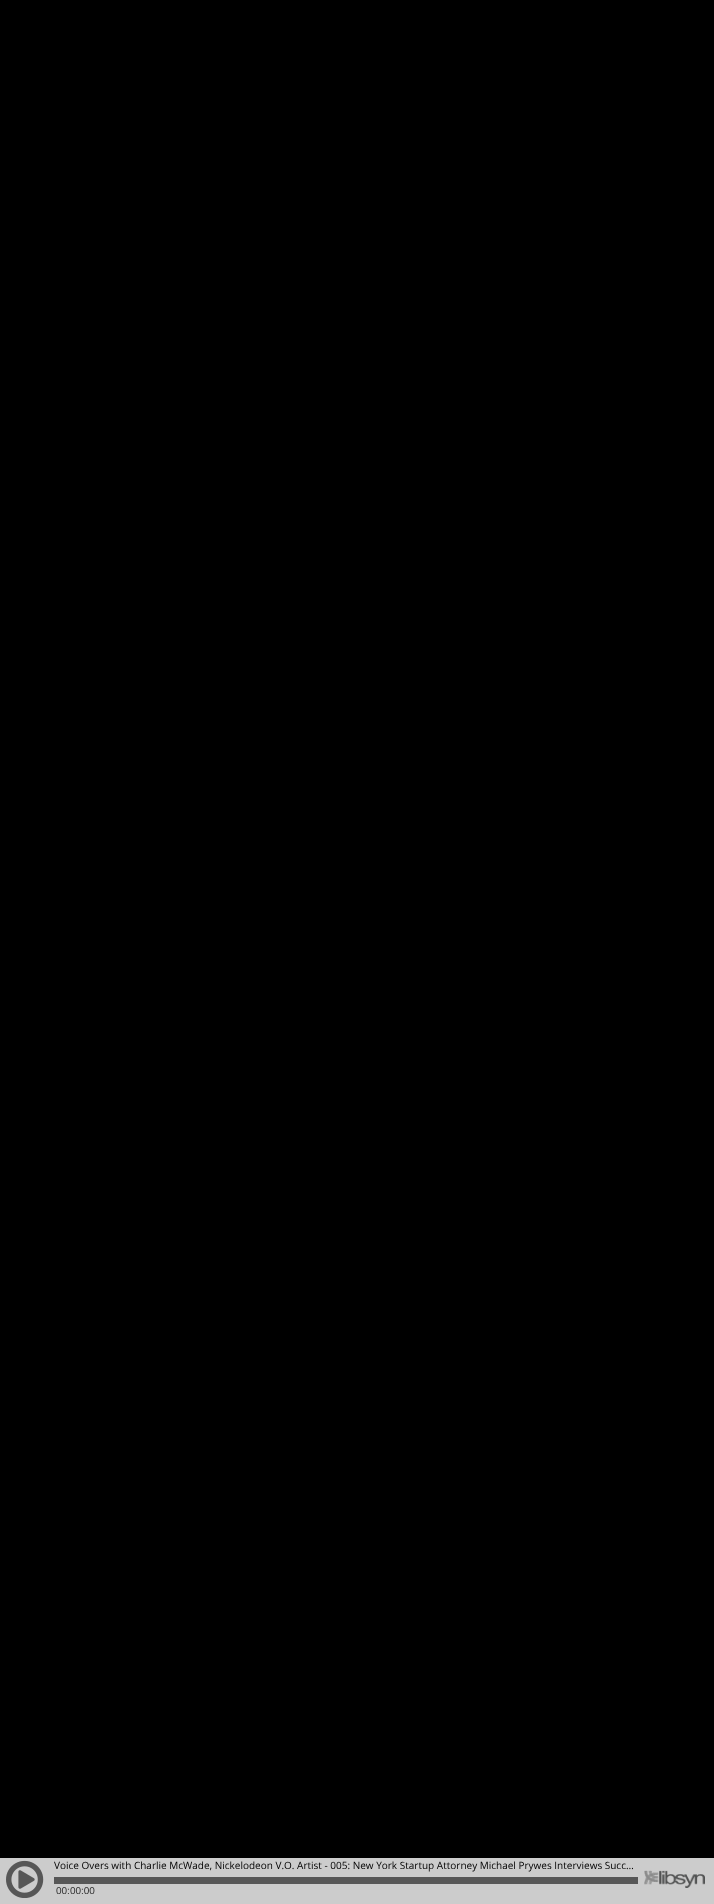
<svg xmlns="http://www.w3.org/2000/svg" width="714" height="1904">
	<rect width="100%" height="100%" fill="#000000" />
	<rect x="0" y="1858" width="714" height="46" fill="#CCCCCC" />
	<image x="6" y="1860" width="38" height="38" href="assets/img1.png" />
	<text x="54" y="1869" font-family="Open Sans" font-size="10" fill="#000000">Voice Overs with Charlie McWade, Nickelodeon V.O. Artist - 005: New York Startup Attorney Michael Prywes Interviews Succ…</text>
	<rect x="54" y="1877" width="584" height="7" fill="#575757" />
	<text x="56" y="1894" font-family="Liberation Sans" font-size="10" fill="#333333">00:00:00</text>
	<image x="644" y="1870" width="61" height="18" href="assets/img2.png" />
</svg>
